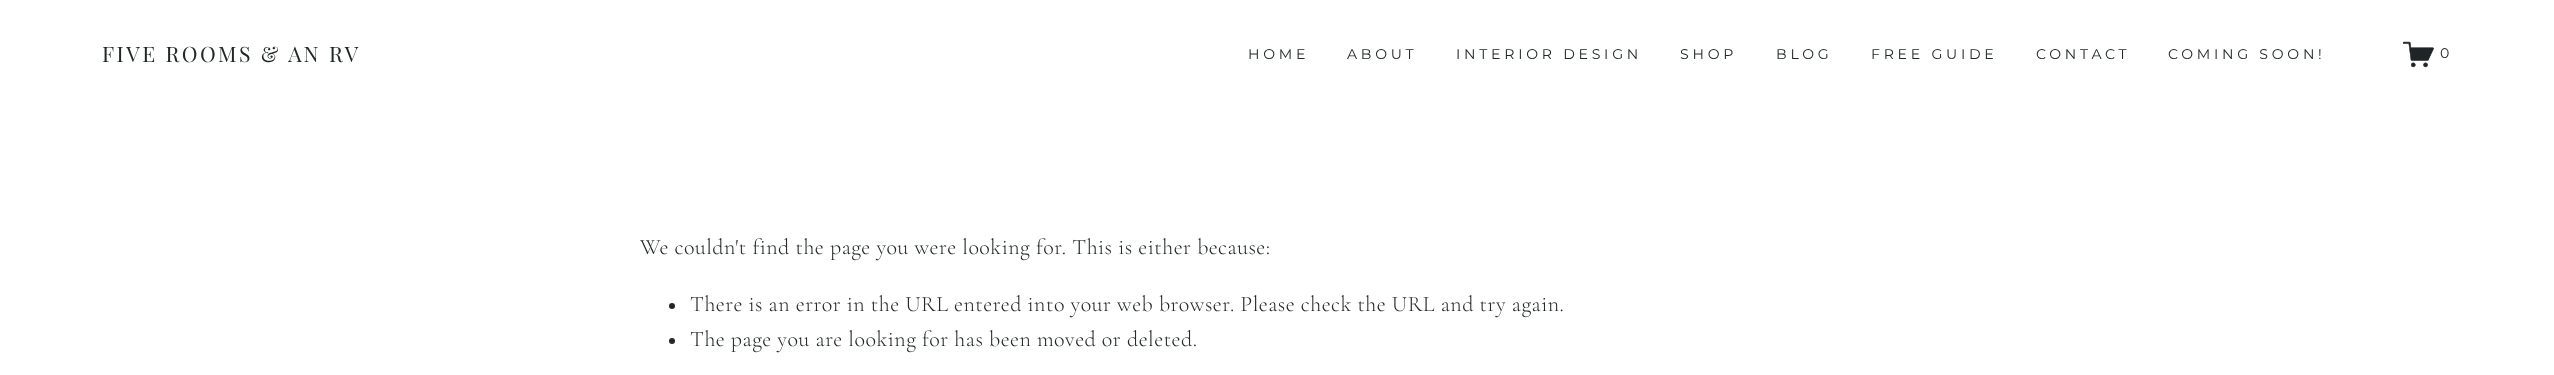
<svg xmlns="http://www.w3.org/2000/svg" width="2554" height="375">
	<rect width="100%" height="100%" fill="#FFFFFF" />
	<text x="102" y="62" font-family="Playfair Display" font-size="21.25" letter-spacing="2.5" fill="#212728">FIVE ROOMS &amp; AN RV</text>
	<g font-family="Montserrat" font-size="14.1" font-weight="100" letter-spacing="3.75" fill="#212728">
		<text x="1248" y="59">HOME</text>
		<text x="1347" y="59">ABOUT</text>
		<text x="1456" y="59">INTERIOR DESIGN</text>
		<text x="1680" y="59">SHOP</text>
		<text x="1776" y="59">BLOG</text>
		<text x="1871" y="59">FREE GUIDE</text>
		<text x="2036" y="59">CONTACT</text>
		<text x="2168" y="59">COMING SOON!</text>
	</g>
	<image x="2403" y="41" width="31" height="27" href="assets/img1.png" />
	<text x="2440" y="58" font-family="Montserrat" font-size="14.1" font-weight="100" letter-spacing="3.75" fill="#212728">0</text>
	<text x="640" y="254" font-family="Cormorant Garamond" font-size="22" font-weight="300" letter-spacing="0.5" fill="#212728">We couldn't find the page you were looking for. This is either because:</text>
	<circle cx="672" cy="306" r="3" fill="#212728" />
	<text x="690" y="311" font-family="Cormorant Garamond" font-size="22" font-weight="300" letter-spacing="0.5" fill="#212728">There is an error in the URL entered into your web browser. Please check the URL and try again.</text>
	<circle cx="672" cy="341" r="3" fill="#212728" />
	<text x="690" y="346" font-family="Cormorant Garamond" font-size="22" font-weight="300" letter-spacing="0.5" fill="#212728">The page you are looking for has been moved or deleted.</text>
</svg>
